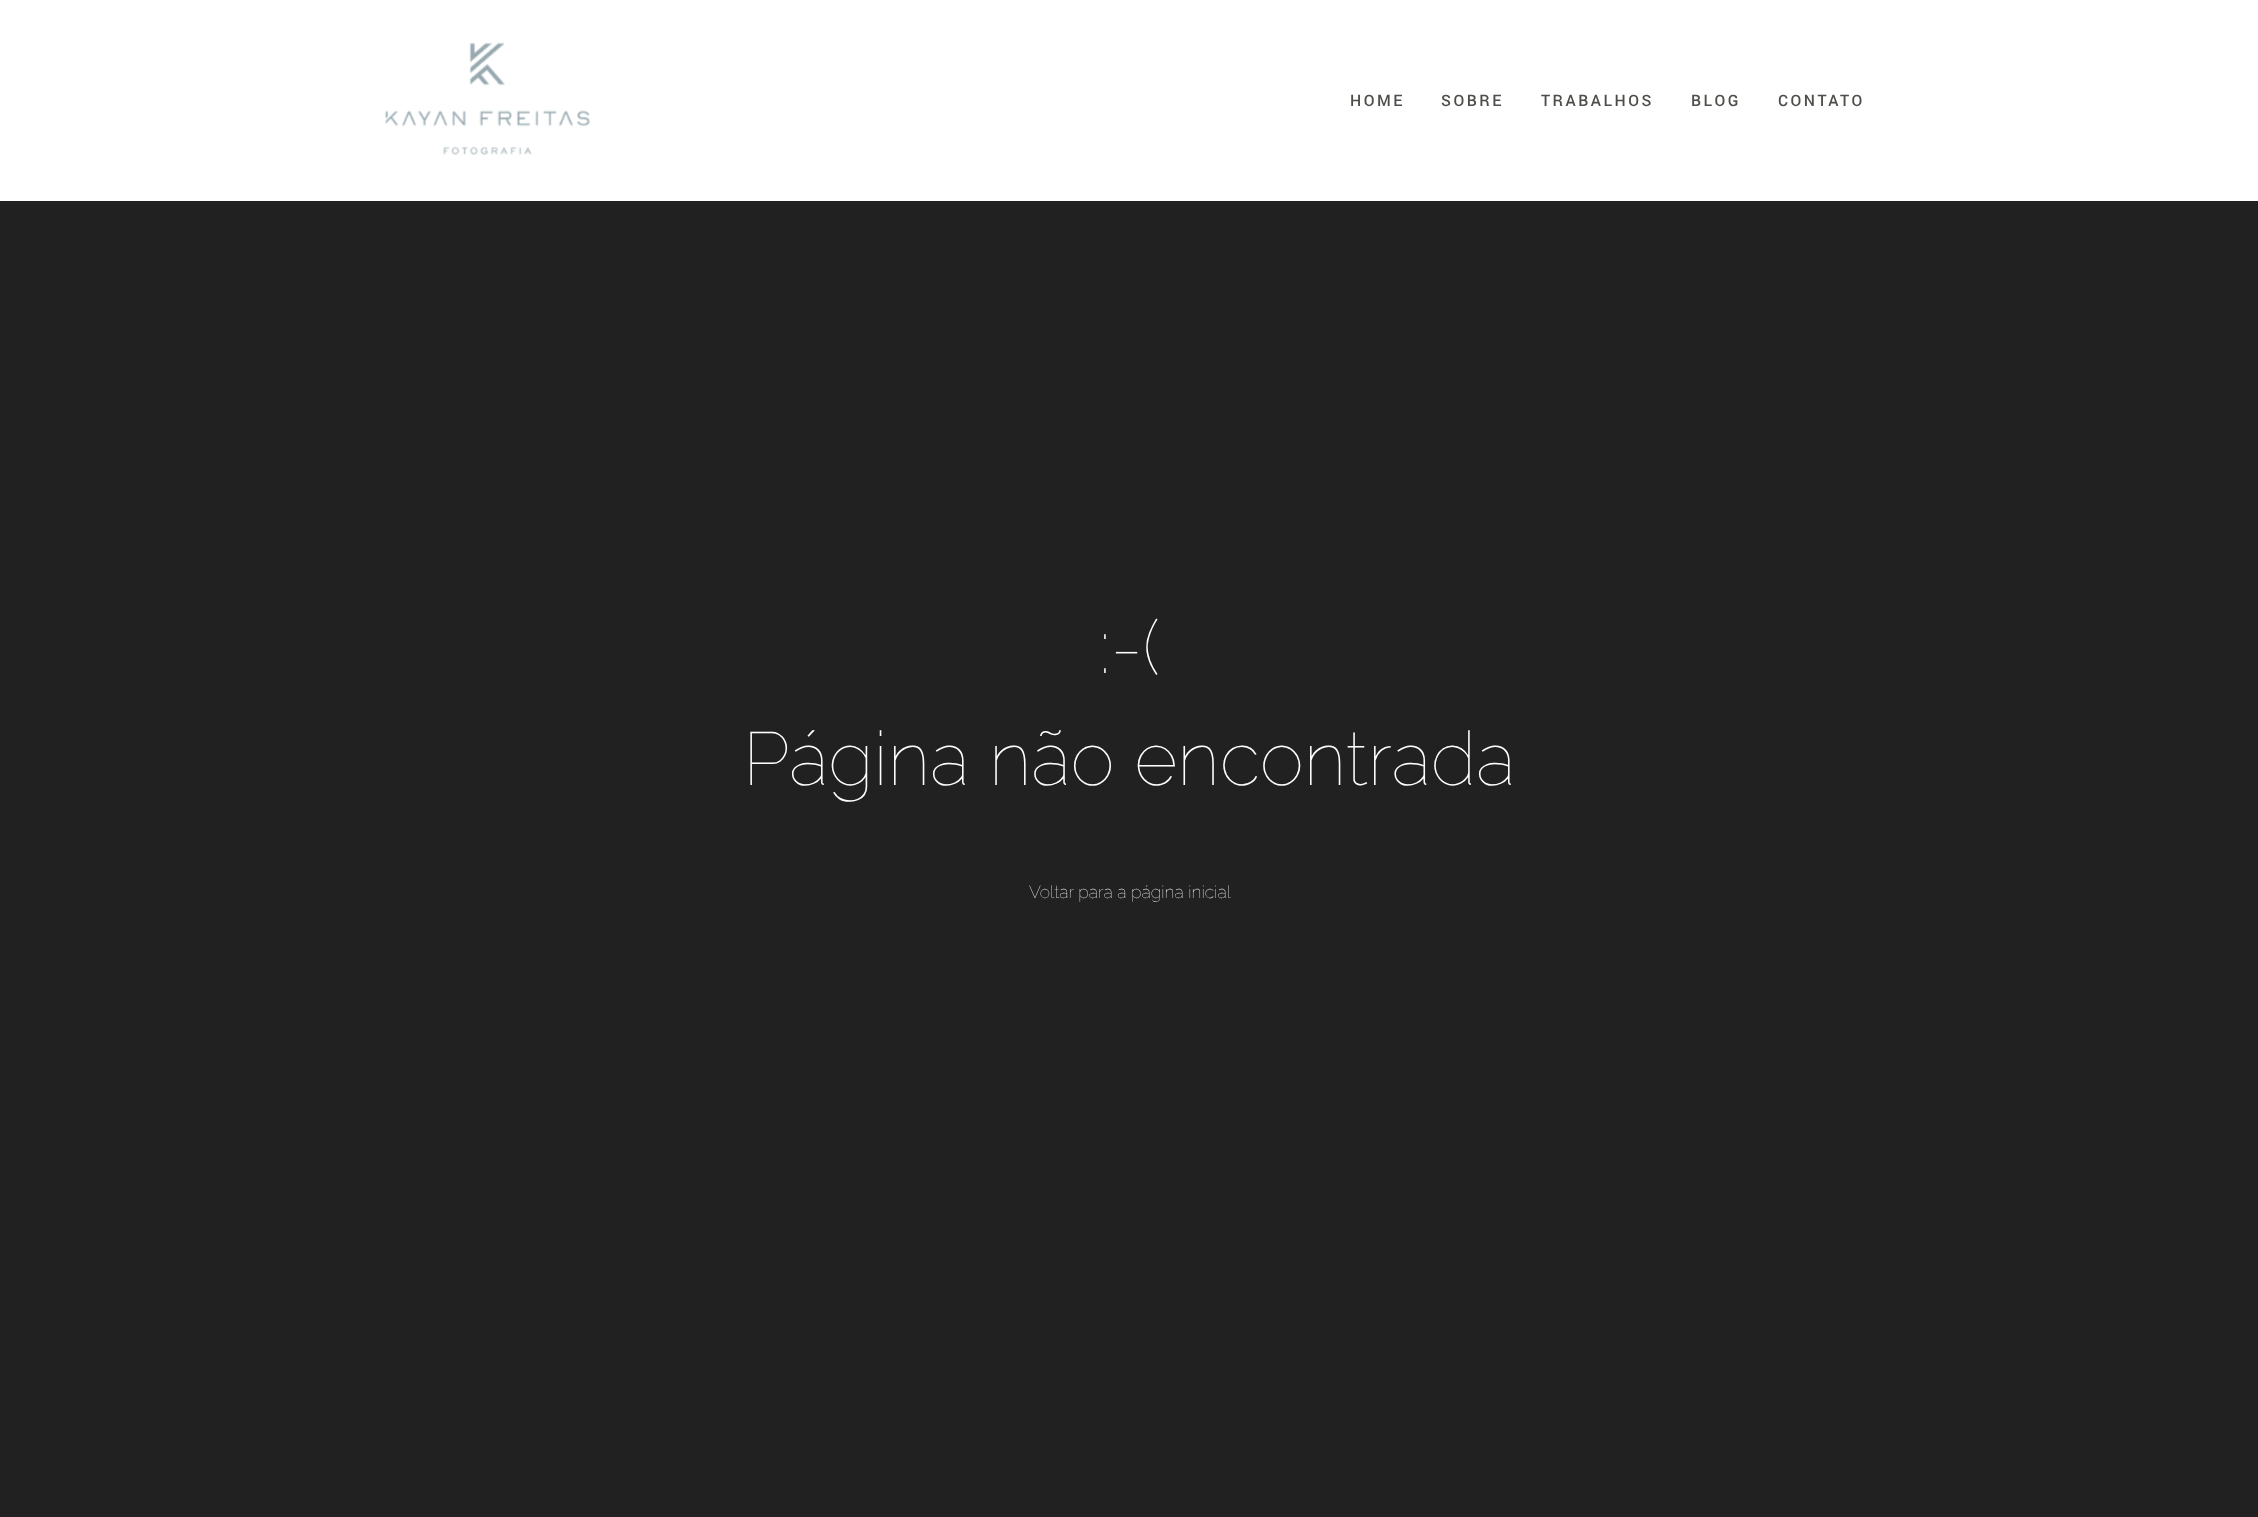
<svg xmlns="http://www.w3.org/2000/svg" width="2258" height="1517">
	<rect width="100%" height="100%" fill="#212121" />
	<rect x="0" y="0" width="2258" height="201" fill="#FFFFFF" />
	<image x="385" y="42" width="205" height="113" href="assets/img1.png" />
	<g font-family="Yantramanav" font-size="17.5" font-weight="500" letter-spacing="2.5" fill="#4D504A">
		<text x="1350" y="106">HOME</text>
		<text x="1441" y="106">SOBRE</text>
		<text x="1541" y="106">TRABALHOS</text>
		<text x="1691" y="106">BLOG</text>
		<text x="1778" y="106">CONTATO</text>
	</g>
	<g font-family="Raleway" font-size="75" font-weight="100" fill="#FFFFFF">
		<text x="1099" y="673">:-(</text>
		<text x="743" y="785">Página não encontrada</text>
	</g>
	<text x="1029" y="898" font-family="Raleway" font-size="17.5" font-weight="100" fill="#FFFFFF">Voltar para a página inicial</text>
</svg>
